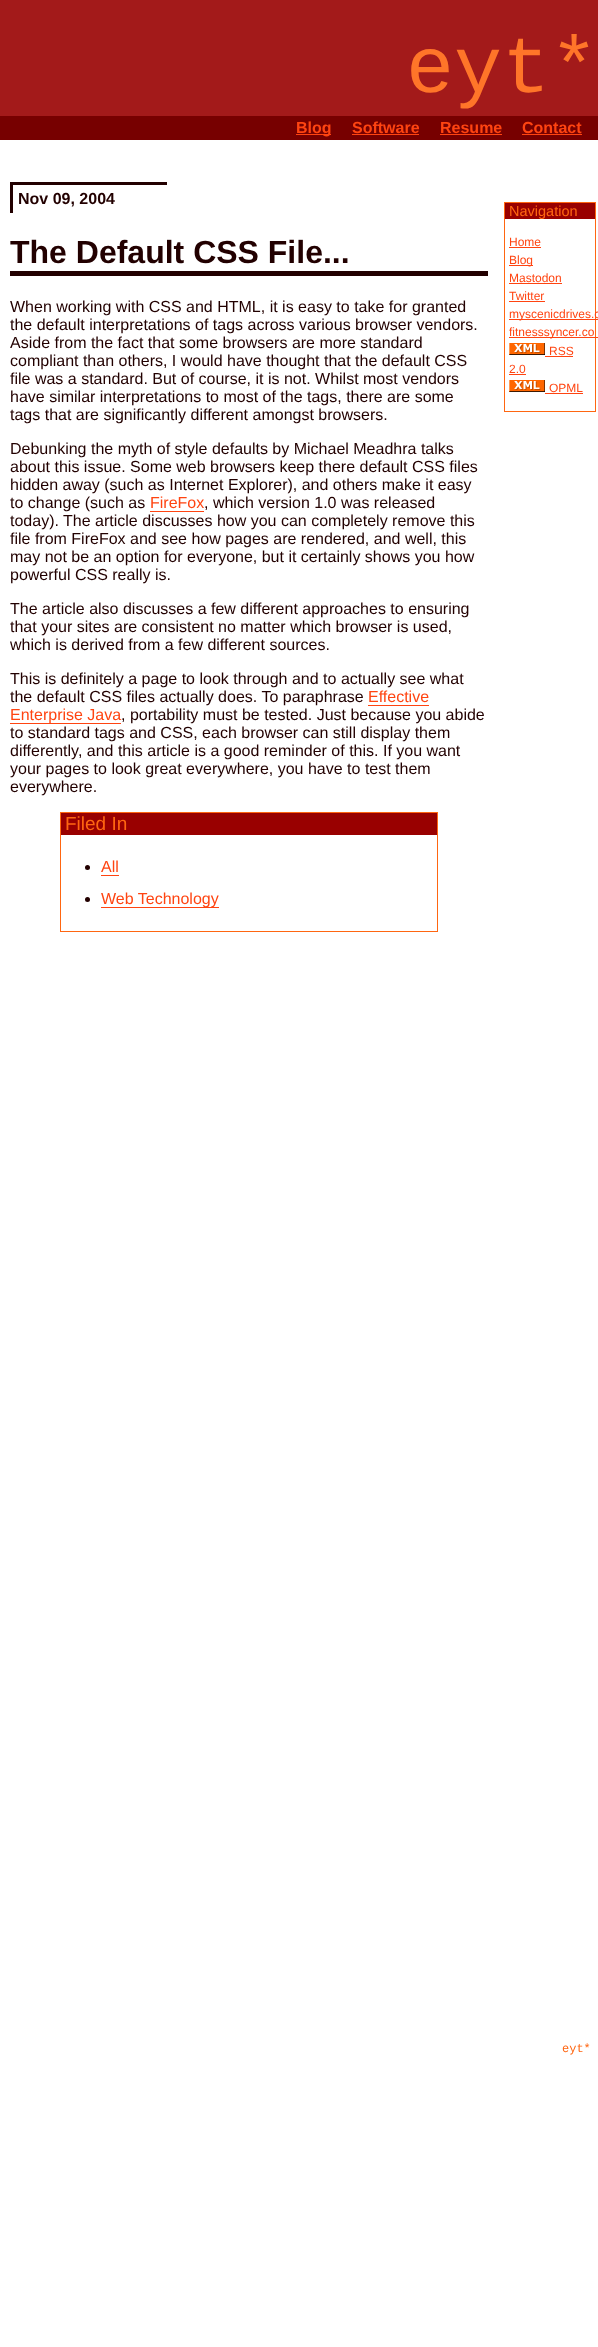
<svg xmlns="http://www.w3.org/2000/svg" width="598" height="2347">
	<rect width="100%" height="100%" fill="#FFFFFF" />
	<rect x="0" y="0" width="598" height="116" fill="#A31A1A" />
	<text x="406" y="92" font-family="Liberation Mono" font-size="80" fill="#FF7529">eyt*</text>
	<rect x="0" y="116" width="598" height="24" fill="#770000" />
	<rect x="296" y="134" width="35" height="1" fill="#FF4411" />
	<g font-family="Liberation Sans" font-size="16" font-weight="700" fill="#FF4411">
		<text x="296" y="133">Blog</text>
		<text x="352" y="133">Software</text>
	</g>
	<rect x="352" y="134" width="67" height="1" fill="#FF4411" />
	<text x="440" y="133" font-family="Liberation Sans" font-size="16" font-weight="700" fill="#FF4411">Resume</text>
	<rect x="440" y="134" width="62" height="1" fill="#FF4411" />
	<text x="522" y="133" font-family="Liberation Sans" font-size="16" font-weight="700" fill="#FF4411">Contact</text>
	<rect x="522" y="134" width="60" height="1" fill="#FF4411" />
	<rect x="10" y="182" width="157" height="3" fill="#220000" />
	<rect x="10" y="182" width="3" height="31" fill="#220000" />
	<text x="18" y="204" font-family="Liberation Sans" font-size="16" font-weight="700" fill="#220000">Nov 09, 2004</text>
	<rect x="10" y="271" width="478" height="5" fill="#220000" />
	<text x="10" y="263" font-family="Liberation Sans" font-size="32" font-weight="700" fill="#220000">The Default CSS File...</text>
	<g font-family="Liberation Sans" font-size="16" fill="#220000">
		<text x="10" y="312">When working with CSS and HTML, it is easy to take for granted</text>
		<text x="10" y="330">the default interpretations of tags across various browser vendors.</text>
		<text x="10" y="348">Aside from the fact that some browsers are more standard</text>
		<text x="10" y="366">compliant than others, I would have thought that the default CSS</text>
		<text x="10" y="384">file was a standard. But of course, it is not. Whilst most vendors</text>
		<text x="10" y="402">have similar interpretations to most of the tags, there are some</text>
		<text x="10" y="420">tags that are significantly different amongst browsers.</text>
		<text x="10" y="454">Debunking the myth of style defaults by Michael Meadhra talks</text>
		<text x="10" y="472">about this issue. Some web browsers keep there default CSS files</text>
		<text x="10" y="490">hidden away (such as Internet Explorer), and others make it easy</text>
		<text x="10" y="508">to change (such as</text>
	</g>
	<text x="150" y="508" font-family="Liberation Sans" font-size="16" fill="#FF4411">FireFox</text>
	<rect x="150" y="511" width="54" height="1" fill="#FF4411" />
	<g font-family="Liberation Sans" font-size="16" fill="#220000">
		<text x="204" y="508">, which version 1.0 was released</text>
		<text x="10" y="526">today). The article discusses how you can completely remove this</text>
		<text x="10" y="544">file from FireFox and see how pages are rendered, and well, this</text>
		<text x="10" y="562">may not be an option for everyone, but it certainly shows you how</text>
		<text x="10" y="580">powerful CSS really is.</text>
		<text x="10" y="614">The article also discusses a few different approaches to ensuring</text>
		<text x="10" y="632">that your sites are consistent no matter which browser is used,</text>
		<text x="10" y="650">which is derived from a few different sources.</text>
		<text x="10" y="684">This is definitely a page to look through and to actually see what</text>
		<text x="10" y="702">the default CSS files actually does. To paraphrase</text>
	</g>
	<text x="368" y="702" font-family="Liberation Sans" font-size="16" fill="#FF4411">Effective</text>
	<rect x="368" y="705" width="61" height="1" fill="#FF4411" />
	<rect x="10" y="723" width="111" height="1" fill="#FF4411" />
	<text x="10" y="720" font-family="Liberation Sans" font-size="16" fill="#FF4411">Enterprise Java</text>
	<g font-family="Liberation Sans" font-size="16" fill="#220000">
		<text x="121" y="720">, portability must be tested. Just because you abide</text>
		<text x="10" y="738">to standard tags and CSS, each browser can still display them</text>
		<text x="10" y="756">differently, and this article is a good reminder of this. If you want</text>
		<text x="10" y="774">your pages to look great everywhere, you have to test them</text>
		<text x="10" y="792">everywhere.</text>
	</g>
	<rect x="60.5" y="812.5" width="377" height="119" fill="none" stroke="#FF6611" />
	<rect x="61" y="813" width="376" height="22" fill="#990000" />
	<text x="65" y="830" font-family="Liberation Sans" font-size="19" fill="#FF6611">Filed In</text>
	<circle cx="87.5" cy="867.5" r="2.5" fill="#220000" />
	<text x="101" y="872" font-family="Liberation Sans" font-size="16" fill="#FF4411">All</text>
	<rect x="101" y="875" width="18" height="1" fill="#FF4411" />
	<circle cx="87.5" cy="899.5" r="2.5" fill="#220000" />
	<rect x="101" y="907" width="118" height="1" fill="#FF4411" />
	<text x="101" y="904" font-family="Liberation Sans" font-size="16" fill="#FF4411">Web Technology</text>
	<rect x="504.5" y="202.5" width="91" height="209" fill="none" stroke="#FF6611" />
	<rect x="505" y="203" width="90" height="16" fill="#990000" />
	<text x="509" y="216" font-family="Liberation Sans" font-size="14.5" fill="#FF6611">Navigation</text>
	<text x="509" y="246" font-family="Liberation Sans" font-size="12" fill="#FF4411">Home</text>
	<rect x="509" y="247" width="32" height="1" fill="#FF4411" />
	<rect x="509" y="265" width="24" height="1" fill="#FF4411" />
	<g font-family="Liberation Sans" font-size="12" fill="#FF4411">
		<text x="509" y="264">Blog</text>
		<text x="509" y="282">Mastodon</text>
	</g>
	<rect x="509" y="283" width="53" height="1" fill="#FF4411" />
	<text x="509" y="300" font-family="Liberation Sans" font-size="12" fill="#FF4411">Twitter</text>
	<rect x="509" y="301" width="36" height="1" fill="#FF4411" />
	<rect x="509" y="319" width="89" height="1" fill="#FF4411" />
	<text x="509" y="318" font-family="Liberation Sans" font-size="12" fill="#FF4411">myscenicdrives.c</text>
	<rect x="509" y="337" width="89" height="1" fill="#FF4411" />
	<text x="509" y="336" font-family="Liberation Sans" font-size="12" fill="#FF4411">fitnesssyncer.co</text>
	<image x="509" y="343" width="36" height="12" href="assets/img1.png" />
	<text x="549" y="355" font-family="Liberation Sans" font-size="12" fill="#FF4411">RSS</text>
	<rect x="545" y="356" width="28" height="1" fill="#FF4411" />
	<text x="509" y="373" font-family="Liberation Sans" font-size="12" fill="#FF4411">2.0</text>
	<rect x="509" y="374" width="17" height="1" fill="#FF4411" />
	<image x="509" y="380" width="36" height="12" href="assets/img1.png" />
	<text x="549" y="392" font-family="Liberation Sans" font-size="12" fill="#FF4411">OPML</text>
	<rect x="545" y="393" width="38" height="1" fill="#FF4411" />
	<text x="562" y="2052" font-family="Liberation Mono" font-size="12" fill="#FF6611">eyt*</text>
</svg>
